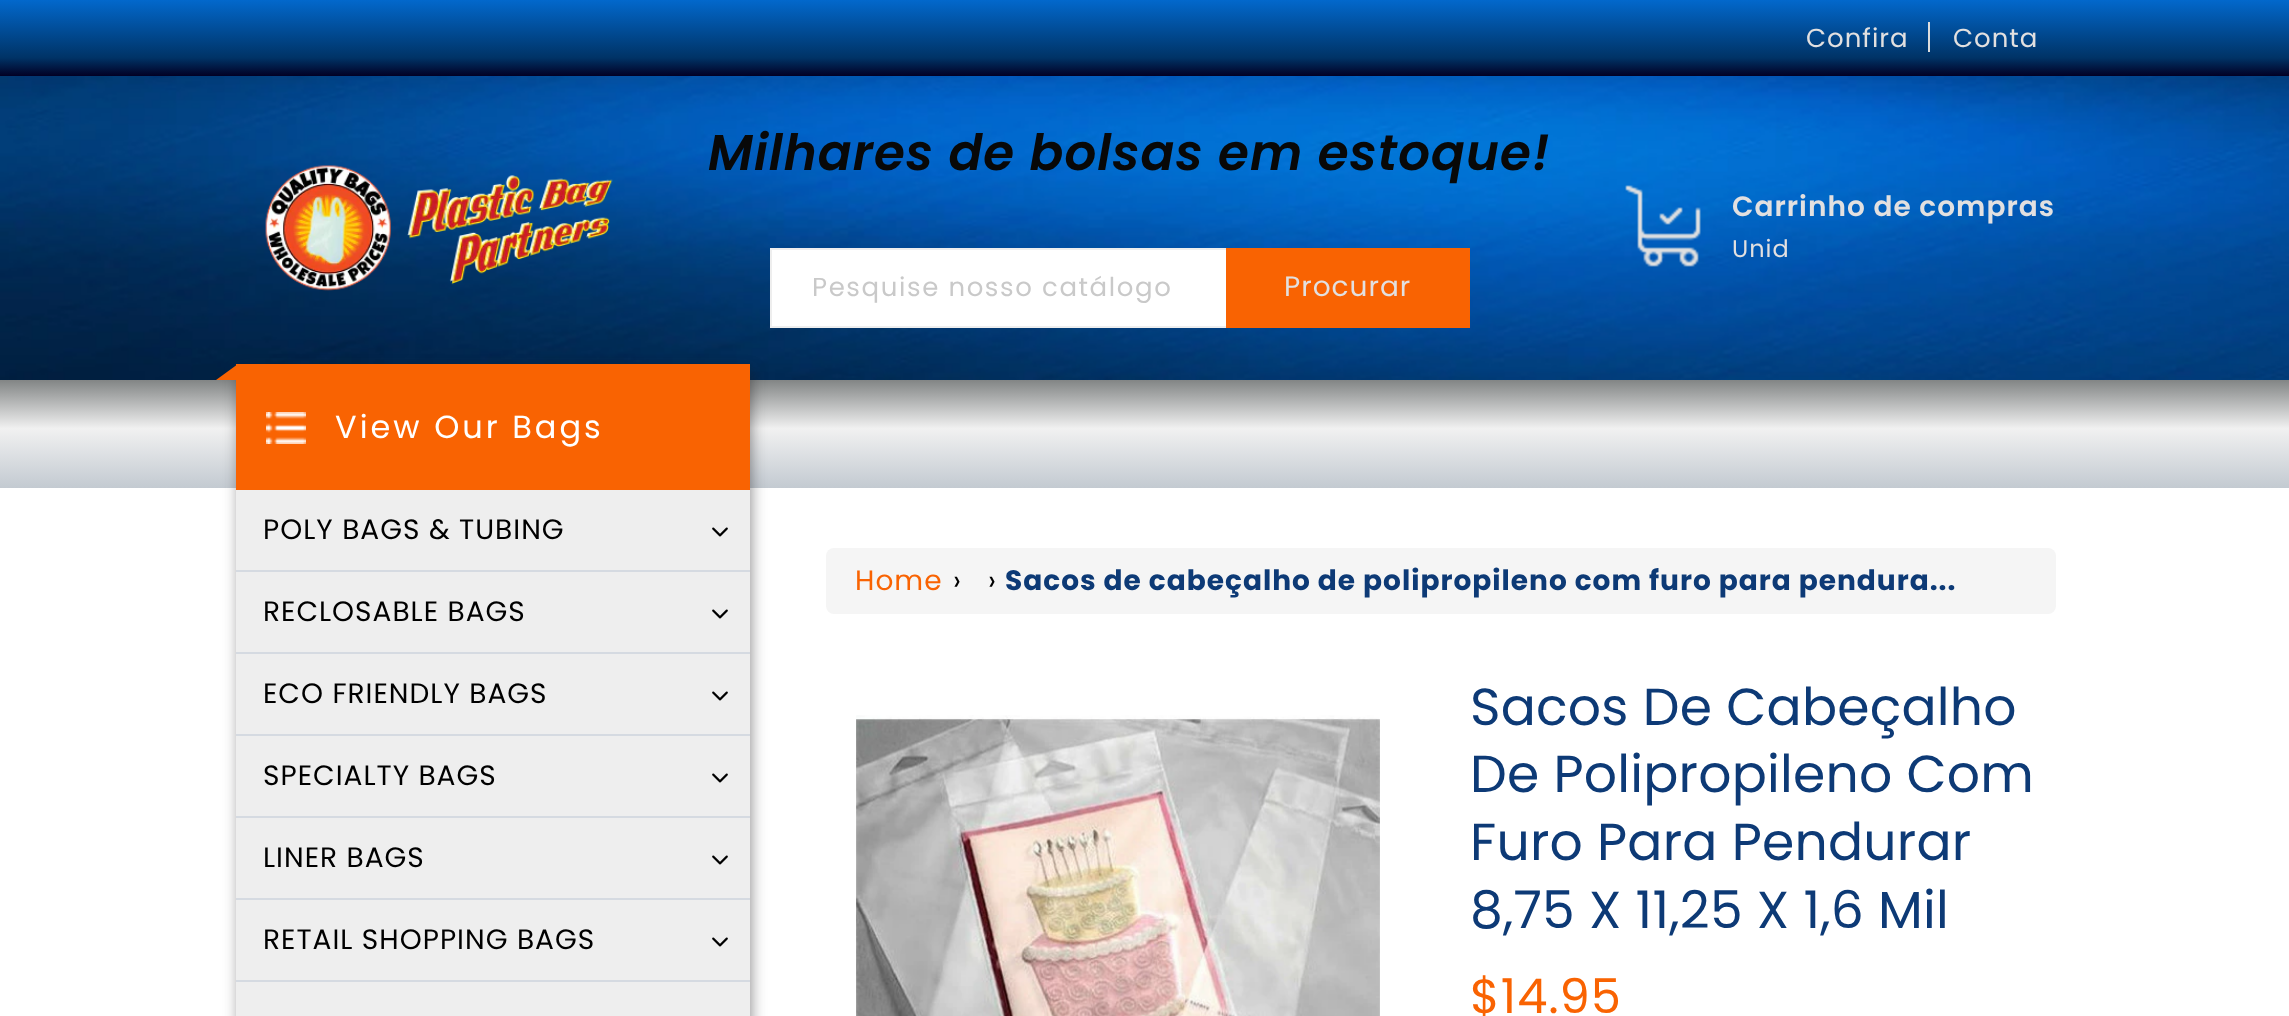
<svg xmlns="http://www.w3.org/2000/svg" width="2289" height="1016">
	<defs>
		<linearGradient id="g1" gradientUnits="userSpaceOnUse" x1="1145" y1="76" x2="1145" y2="0"><stop offset="0" stop-color="#020024" /><stop offset="0.24" stop-color="#003366" /><stop offset="1" stop-color="#0268CC" /></linearGradient>
		<linearGradient id="g2" gradientUnits="userSpaceOnUse" x1="1145" y1="488" x2="1145" y2="380"><stop offset="0" stop-color="#C3CAD1" /><stop offset="0.55" stop-color="#F1F1F1" /><stop offset="1" stop-color="#828585" /></linearGradient>
	</defs>
	<rect width="100%" height="100%" fill="#FFFFFF" />
	<rect x="0" y="0" width="2289" height="76" fill="url(#g1)" />
	<text x="1806" y="47" font-family="Poppins" font-size="26" letter-spacing="1" fill="#E2E0E0">Confira</text>
	<rect x="1928" y="22" width="2" height="30" fill="#DDDDDD" />
	<text x="1953" y="47" font-family="Poppins" font-size="26" letter-spacing="1" fill="#E2E0E0">Conta</text>
	<image x="0" y="76" width="2289" height="304" href="assets/img1.png" />
	<image x="265" y="165" width="348" height="126" href="assets/img2.png" />
	<text x="708" y="170" font-family="Poppins" font-size="50" font-weight="600" font-style="italic" letter-spacing="1" fill="#080808">Milhares de bolsas em estoque!</text>
	<rect x="772" y="250" width="454" height="76" fill="#FFFFFF" />
	<rect x="771" y="249" width="698" height="78" fill="none" stroke="#EEEEEE" stroke-width="2" />
	<text x="812" y="296" font-family="Poppins" font-size="26" letter-spacing="1.6" fill="#C9C9C9">Pesquise nosso catálogo</text>
	<rect x="1226" y="248" width="244" height="80" fill="#F96302" />
	<text x="1284" y="296" font-family="Poppins" font-size="28" letter-spacing="1" fill="#E2E0E0">Procurar</text>
	<image x="1625" y="185" width="76" height="82" href="assets/img3.png" />
	<text x="1732" y="216" font-family="Poppins" font-size="28" font-weight="600" letter-spacing="1" fill="#E2E0E0">Carrinho de compras</text>
	<text x="1732" y="257" font-family="Poppins" font-size="24" letter-spacing="1" fill="#E2E0E0">Unid</text>
	<rect x="0" y="380" width="2289" height="108" fill="url(#g2)" />
	<rect x="240" y="372" width="510" height="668" fill="#1C1B1C" fill-opacity="0.56" filter="blur(8px)" />
	<rect x="236" y="364" width="514" height="126" fill="#F96302" />
	<image x="266" y="412" width="40" height="32" href="assets/img4.png" />
	<path d="M238 380H216L238 364Z" fill="#F96302" />
	<text x="335" y="438" font-family="Poppins" font-size="32" letter-spacing="3" fill="#FFFFFF">View Our Bags</text>
	<rect x="236" y="490" width="514" height="80" fill="#EEEEEE" />
	<rect x="236" y="570" width="514" height="2" fill="#D5DAE1" />
	<text x="263" y="539" font-family="Poppins" font-size="28" letter-spacing="1" fill="#000000">POLY BAGS &amp; TUBING</text>
	<image x="712" y="527" width="16" height="10" href="assets/img5.png" />
	<rect x="236" y="572" width="514" height="80" fill="#EEEEEE" />
	<rect x="236" y="652" width="514" height="2" fill="#D5DAE1" />
	<text x="263" y="621" font-family="Poppins" font-size="28" letter-spacing="1" fill="#000000">RECLOSABLE BAGS</text>
	<image x="712" y="609" width="16" height="10" href="assets/img5.png" />
	<rect x="236" y="654" width="514" height="80" fill="#EEEEEE" />
	<rect x="236" y="734" width="514" height="2" fill="#D5DAE1" />
	<text x="263" y="703" font-family="Poppins" font-size="28" letter-spacing="1" fill="#000000">ECO FRIENDLY BAGS</text>
	<image x="712" y="691" width="16" height="10" href="assets/img5.png" />
	<rect x="236" y="736" width="514" height="80" fill="#EEEEEE" />
	<rect x="236" y="816" width="514" height="2" fill="#D5DAE1" />
	<text x="263" y="785" font-family="Poppins" font-size="28" letter-spacing="1" fill="#000000">SPECIALTY BAGS</text>
	<image x="712" y="773" width="16" height="10" href="assets/img5.png" />
	<rect x="236" y="818" width="514" height="80" fill="#EEEEEE" />
	<rect x="236" y="898" width="514" height="2" fill="#D5DAE1" />
	<text x="263" y="867" font-family="Poppins" font-size="28" letter-spacing="1" fill="#000000">LINER BAGS</text>
	<image x="712" y="855" width="16" height="10" href="assets/img5.png" />
	<rect x="236" y="900" width="514" height="80" fill="#EEEEEE" />
	<rect x="236" y="980" width="514" height="2" fill="#D5DAE1" />
	<text x="263" y="949" font-family="Poppins" font-size="28" letter-spacing="1" fill="#000000">RETAIL SHOPPING BAGS</text>
	<image x="712" y="937" width="16" height="10" href="assets/img5.png" />
	<rect x="236" y="982" width="514" height="34" fill="#EEEEEE" />
	<rect x="826" y="548" width="1230" height="66" rx="8" fill="#F5F5F5" />
	<text x="855" y="590" font-family="Poppins" font-size="28" letter-spacing="1" fill="#F96302">Home</text>
	<g font-family="Poppins" font-size="28" letter-spacing="1" fill="#000000">
		<text x="953" y="590">›</text>
		<text x="988" y="590">›</text>
	</g>
	<text x="1005" y="590" font-family="Poppins" font-size="28" font-weight="700" letter-spacing="1" fill="#0D3A76">Sacos de cabeçalho de polipropileno com furo para pendura...</text>
	<image x="856" y="715" width="524" height="301" href="assets/img6.png" />
	<g font-family="Poppins" font-size="52" letter-spacing="0.2" fill="#0D3A76">
		<text x="1470" y="725">Sacos De Cabeçalho</text>
		<text x="1470" y="792">De Polipropileno Com</text>
		<text x="1470" y="860">Furo Para Pendurar</text>
		<text x="1470" y="928">8,75 X 11,25 X 1,6 Mil</text>
	</g>
	<text x="1470" y="1013" font-family="Poppins" font-size="48" letter-spacing="1" fill="#F96302">$14.95</text>
</svg>
